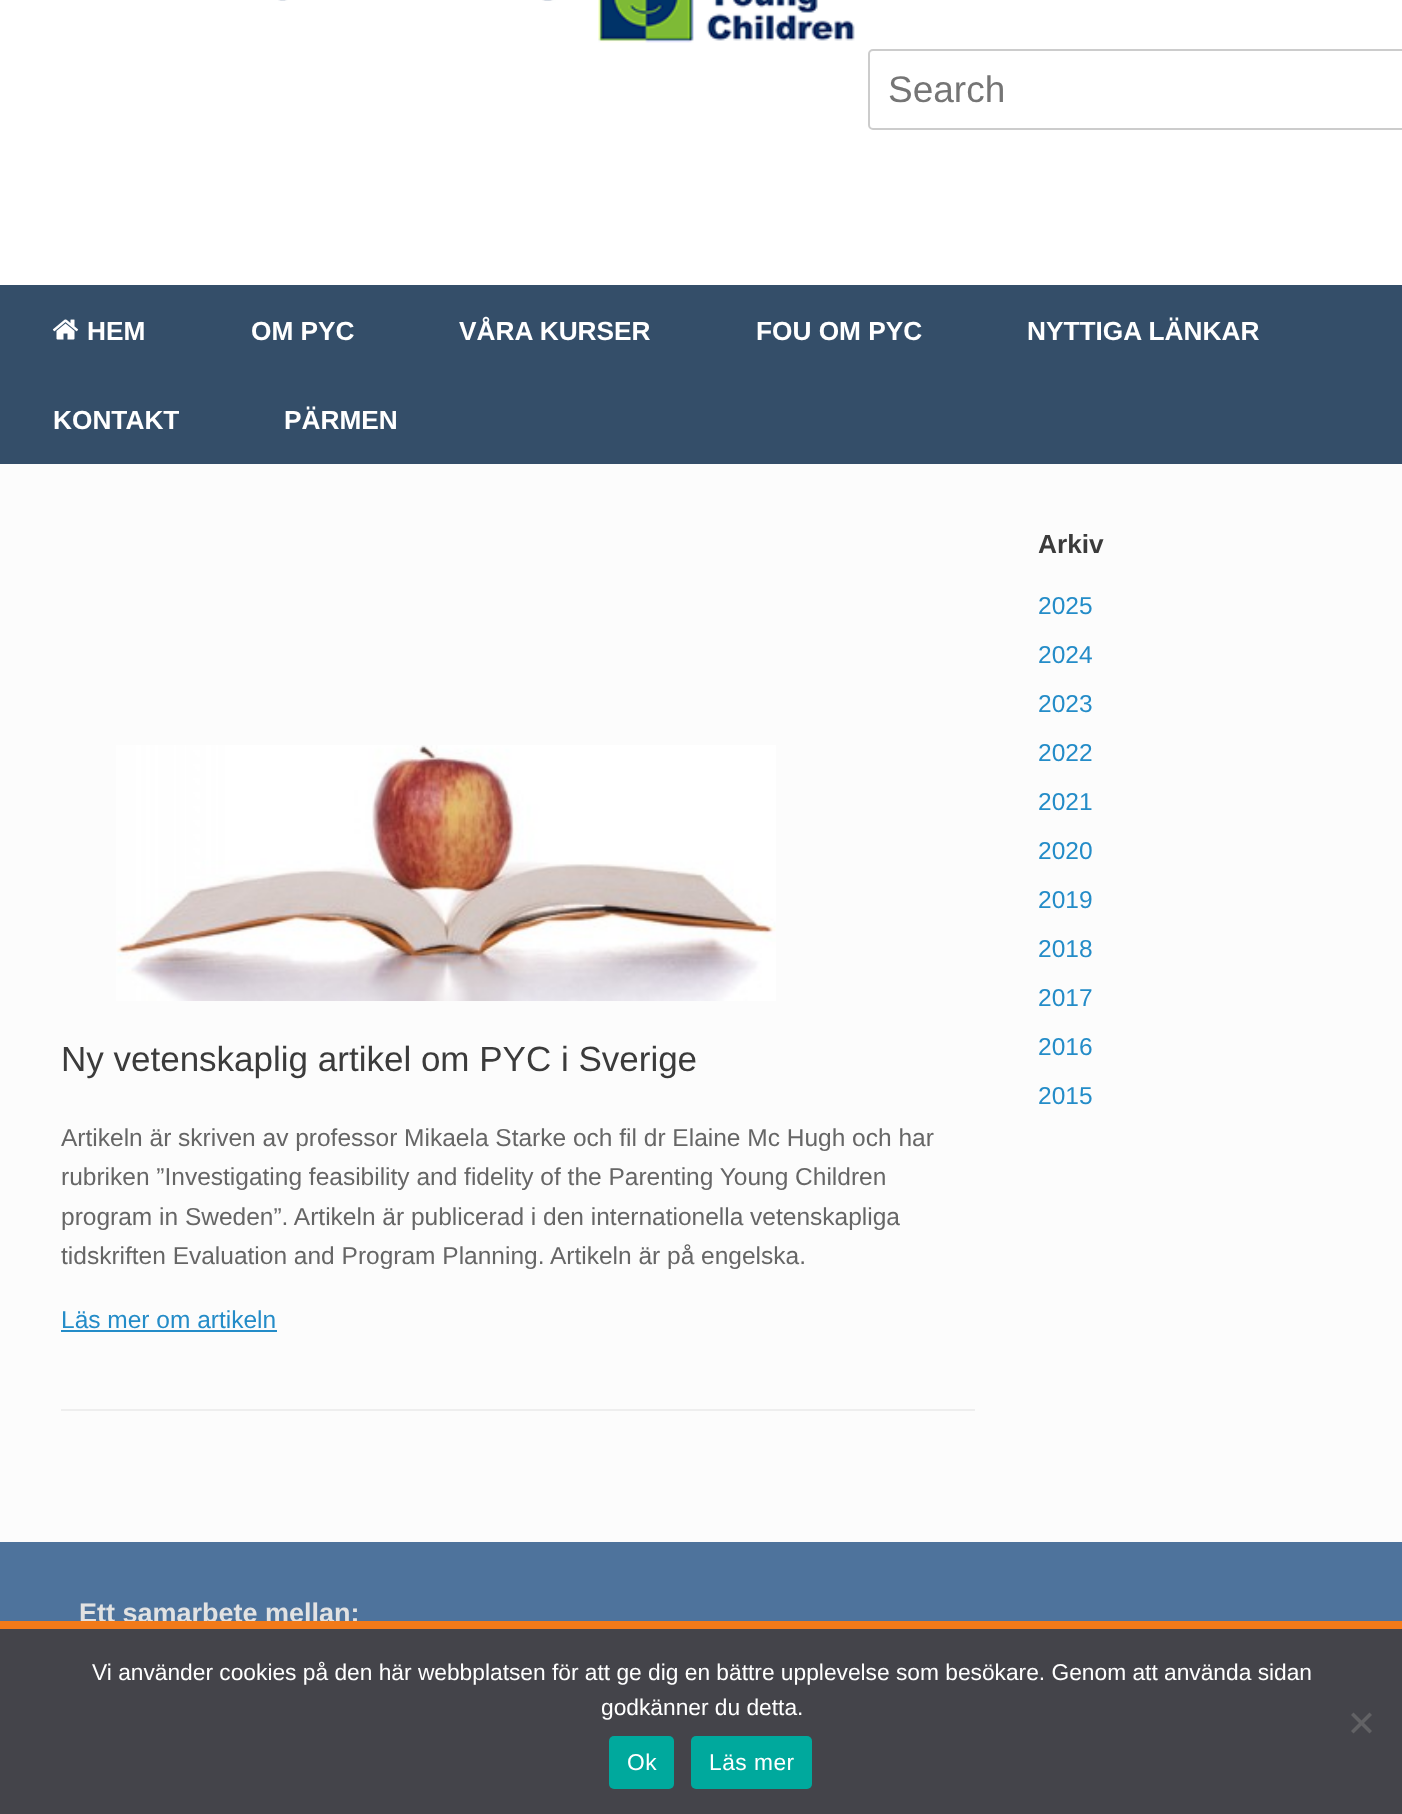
<svg xmlns="http://www.w3.org/2000/svg" width="1402" height="1814">
	<rect width="100%" height="100%" fill="#4E739C" />
	<rect x="0" y="0" width="1402" height="285" fill="#FFFFFF" />
	<image x="278" y="0" width="577" height="43" href="assets/img1.png" />
	<rect x="869" y="50" width="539" height="79" rx="4" fill="none" stroke="#CCCCCC" stroke-width="2" />
	<text x="888" y="102" font-family="Liberation Sans" font-size="37" fill="#757575">Search</text>
	<rect x="0" y="285" width="1402" height="179" fill="#344E69" />
	<image x="52" y="319" width="27" height="21" href="assets/img2.png" />
	<g font-family="Liberation Sans" font-size="26.25" font-weight="700" fill="#FFFFFF">
		<text x="87" y="340">HEM</text>
		<text x="251" y="340">OM PYC</text>
		<text x="459" y="340">VÅRA KURSER</text>
		<text x="756" y="340">FOU OM PYC</text>
		<text x="1027" y="340">NYTTIGA LÄNKAR</text>
		<text x="53" y="429">KONTAKT</text>
		<text x="284" y="429">PÄRMEN</text>
	</g>
	<rect x="0" y="464" width="1402" height="1078" fill="#FCFCFC" />
	<text x="1038" y="553" font-family="Liberation Sans" font-size="26.25" font-weight="700" fill="#3B3B3B">Arkiv</text>
	<g font-family="Liberation Sans" font-size="24.5" fill="#248CC8">
		<text x="1038" y="614">2025</text>
		<text x="1038" y="663">2024</text>
		<text x="1038" y="712">2023</text>
		<text x="1038" y="761">2022</text>
		<text x="1038" y="810">2021</text>
		<text x="1038" y="859">2020</text>
		<text x="1038" y="908">2019</text>
		<text x="1038" y="957">2018</text>
		<text x="1038" y="1006">2017</text>
		<text x="1038" y="1055">2016</text>
		<text x="1038" y="1104">2015</text>
	</g>
	<rect x="61" y="1409" width="914" height="2" fill="#EEEEEE" />
	<image x="116" y="745" width="660" height="256" href="assets/img3.png" />
	<text x="61" y="1071" font-family="Liberation Sans" font-size="35" fill="#3B3B3B">Ny vetenskaplig artikel om PYC i Sverige</text>
	<g font-family="Liberation Sans" font-size="24.5" fill="#666666">
		<text x="61" y="1146">Artikeln är skriven av professor Mikaela Starke och fil dr Elaine Mc Hugh och har</text>
		<text x="61" y="1185">rubriken ”Investigating feasibility and fidelity of the Parenting Young Children</text>
		<text x="61" y="1225">program in Sweden”. Artikeln är publicerad i den internationella vetenskapliga</text>
		<text x="61" y="1264">tidskriften Evaluation and Program Planning. Artikeln är på engelska.</text>
	</g>
	<text x="61" y="1328" font-family="Liberation Sans" font-size="24.5" fill="#248CC8">Läs mer om artikeln</text>
	<rect x="61" y="1330" width="216" height="2" fill="#248CC8" />
	<text x="79" y="1622" font-family="Liberation Sans" font-size="27" font-weight="700" fill="#E2E2E2">Ett samarbete mellan:</text>
	<rect x="0" y="1629" width="1402" height="185" fill="#44444A" />
	<rect x="0" y="1621" width="1402" height="8" fill="#F27A19" />
	<g font-family="Liberation Sans" font-size="22.75" fill="#FFFFFF">
		<text x="92" y="1680">Vi använder cookies på den här webbplatsen för att ge dig en bättre upplevelse som besökare. Genom att använda sidan</text>
		<text x="601" y="1715">godkänner du detta.</text>
	</g>
	<path d="M1369.5 1712.5L1372 1715L1353.5 1733.5L1351 1731Z" fill="#626265" />
	<path d="M1351 1715L1353.5 1712.5L1372 1731L1369.5 1733.5Z" fill="#626265" />
	<rect x="609" y="1736" width="65" height="53" rx="5" fill="#00A99D" />
	<text x="627" y="1770" font-family="Liberation Sans" font-size="22.75" letter-spacing="0.5" fill="#FFFFFF">Ok</text>
	<rect x="691" y="1736" width="121" height="53" rx="5" fill="#00A99D" />
	<text x="709" y="1770" font-family="Liberation Sans" font-size="22.75" letter-spacing="0.5" fill="#FFFFFF">Läs mer</text>
</svg>
